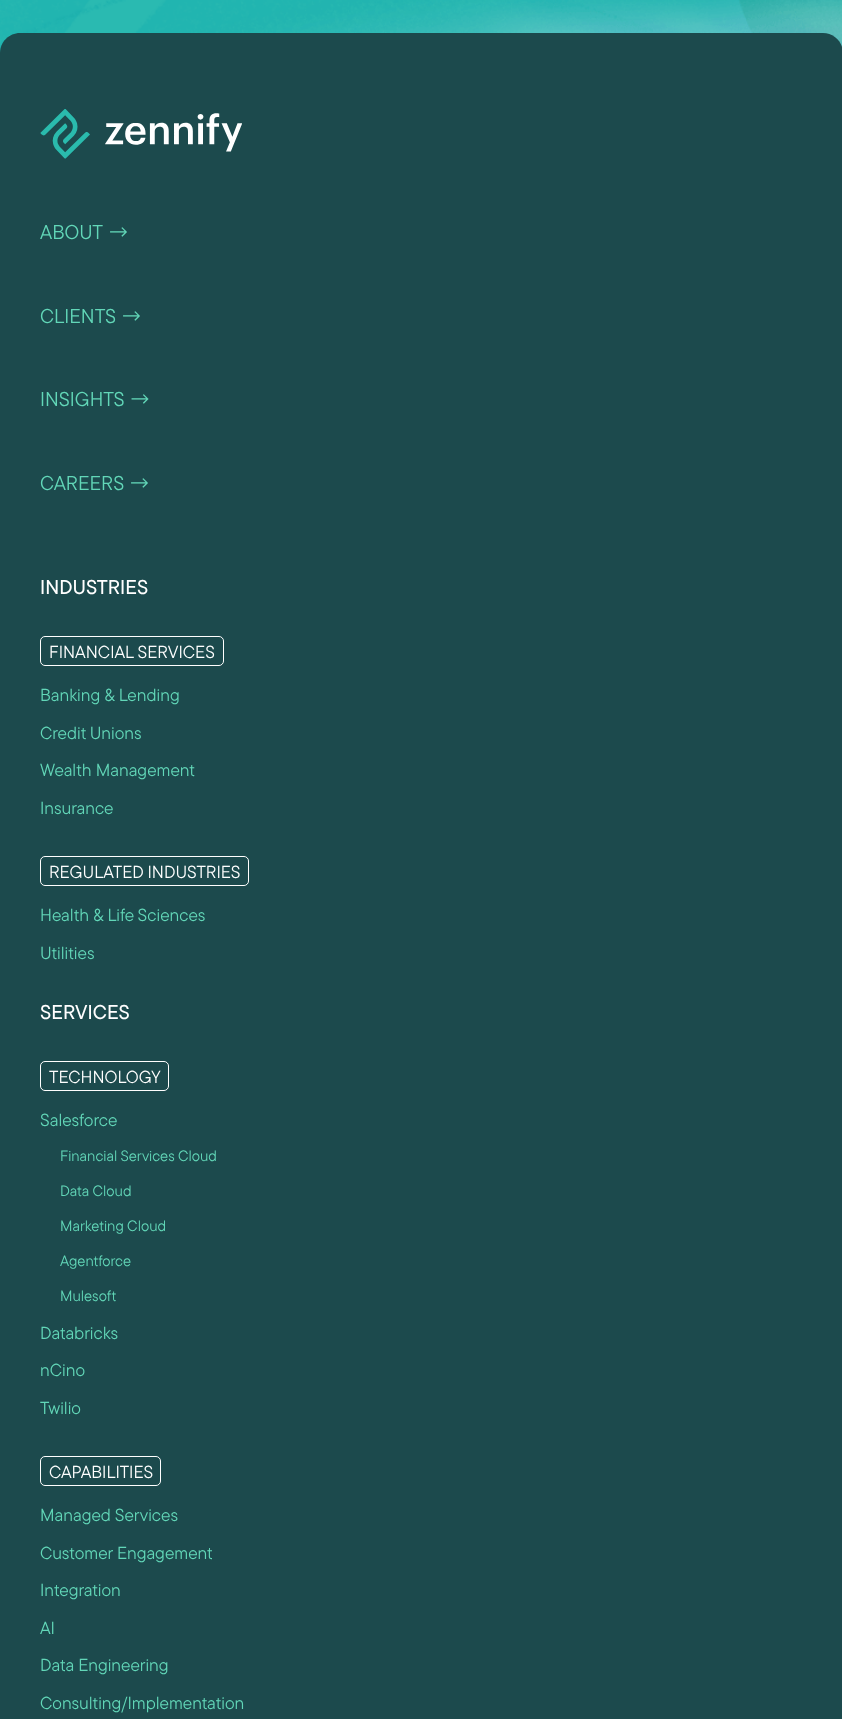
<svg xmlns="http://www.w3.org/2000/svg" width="842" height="1719">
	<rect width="100%" height="100%" fill="#0DB2A7" />
	<image x="0" y="0" width="842" height="53" href="assets/img1.png" />
	<path d="M20 33H823C834 33 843 42 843 53V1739H0V53C0 42 9 33 20 33Z" fill="#1C4A4D" />
	<image x="40" y="109" width="202" height="50" href="assets/img2.png" />
	<g font-family="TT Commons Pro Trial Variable" font-size="20" fill="#62D7B8">
		<text x="40" y="239">ABOUT →</text>
		<text x="40" y="323">CLIENTS →</text>
		<text x="40" y="406">INSIGHTS →</text>
		<text x="40" y="490">CAREERS →</text>
	</g>
	<text x="40" y="594" font-family="TT Commons Pro Trial Variable" font-size="20" font-weight="500" fill="#FFFFFF">INDUSTRIES</text>
	<rect x="40.5" y="636.5" width="183" height="29" rx="4.5" fill="none" stroke="#FFFFFF" />
	<text x="49" y="658" font-family="TT Commons Pro Trial Variable" font-size="17.5" fill="#FFFFFF">FINANCIAL SERVICES</text>
	<g font-family="TT Commons Pro Trial Variable" font-size="17.5" fill="#62D7B8">
		<text x="40" y="701">Banking &amp; Lending</text>
		<text x="40" y="739">Credit Unions</text>
		<text x="40" y="776">Wealth Management</text>
		<text x="40" y="814">Insurance</text>
	</g>
	<rect x="40.5" y="856.5" width="208" height="29" rx="4.5" fill="none" stroke="#FFFFFF" />
	<text x="49" y="878" font-family="TT Commons Pro Trial Variable" font-size="17.5" fill="#FFFFFF">REGULATED INDUSTRIES</text>
	<g font-family="TT Commons Pro Trial Variable" font-size="17.5" fill="#62D7B8">
		<text x="40" y="921">Health &amp; Life Sciences</text>
		<text x="40" y="959">Utilities</text>
	</g>
	<text x="40" y="1019" font-family="TT Commons Pro Trial Variable" font-size="20" font-weight="500" fill="#FFFFFF">SERVICES</text>
	<rect x="40.5" y="1061.5" width="128" height="29" rx="4.5" fill="none" stroke="#FFFFFF" />
	<text x="49" y="1083" font-family="TT Commons Pro Trial Variable" font-size="17.5" fill="#FFFFFF">TECHNOLOGY</text>
	<text x="40" y="1126" font-family="TT Commons Pro Trial Variable" font-size="17.5" fill="#62D7B8">Salesforce</text>
	<g font-family="TT Commons Pro Trial Variable" font-size="15" fill="#62D7B8">
		<text x="60" y="1161">Financial Services Cloud</text>
		<text x="60" y="1196">Data Cloud</text>
		<text x="60" y="1231">Marketing Cloud</text>
		<text x="60" y="1266">Agentforce</text>
		<text x="60" y="1301">Mulesoft</text>
	</g>
	<g font-family="TT Commons Pro Trial Variable" font-size="17.5" fill="#62D7B8">
		<text x="40" y="1339">Databricks</text>
		<text x="40" y="1376">nCino</text>
		<text x="40" y="1414">Twilio</text>
	</g>
	<rect x="40.5" y="1456.5" width="120" height="29" rx="4.5" fill="none" stroke="#FFFFFF" />
	<text x="49" y="1478" font-family="TT Commons Pro Trial Variable" font-size="17.5" fill="#FFFFFF">CAPABILITIES</text>
	<g font-family="TT Commons Pro Trial Variable" font-size="17.5" fill="#62D7B8">
		<text x="40" y="1521">Managed Services</text>
		<text x="40" y="1559">Customer Engagement</text>
		<text x="40" y="1596">Integration</text>
		<text x="40" y="1634">AI</text>
		<text x="40" y="1671">Data Engineering</text>
		<text x="40" y="1709">Consulting/Implementation</text>
	</g>
</svg>
